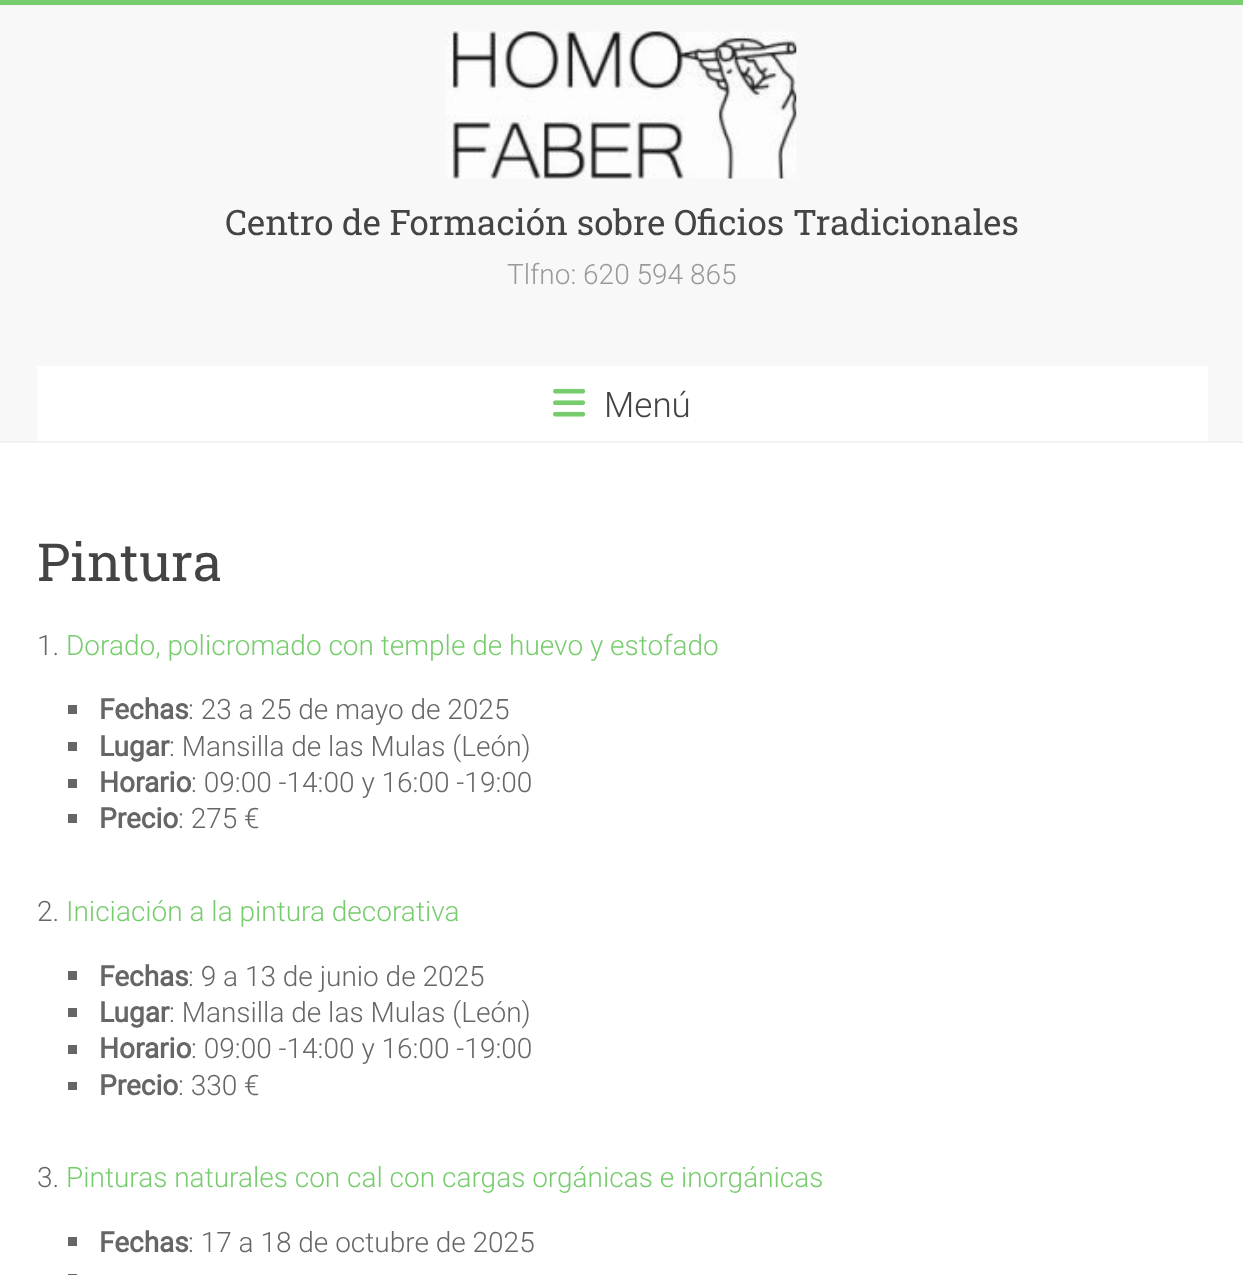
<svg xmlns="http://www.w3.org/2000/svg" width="1243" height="1275">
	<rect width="100%" height="100%" fill="#FFFFFF" />
	<rect x="0" y="0" width="1243" height="5" fill="#77CC6D" />
	<rect x="0" y="5" width="1243" height="436" fill="#F8F8F8" />
	<rect x="0" y="441" width="1243" height="2" fill="#F2F2F2" />
	<image x="446" y="31" width="351" height="148" href="assets/img1.png" />
	<text x="225" y="235" font-family="Roboto Slab" font-size="35" fill="#444444">Centro de Formación sobre Oficios Tradicionales</text>
	<text x="507" y="284" font-family="Roboto" font-size="28" font-weight="300" fill="#999999">Tlfno: 620 594 865</text>
	<rect x="37" y="366" width="1171" height="75" fill="#FFFFFF" />
	<image x="553" y="388" width="33" height="29" href="assets/img2.png" />
	<text x="604" y="417" font-family="Roboto" font-size="35" font-weight="300" fill="#444444">Menú</text>
	<text x="37" y="581" font-family="Roboto Slab" font-size="52.5" fill="#444444">Pintura</text>
	<text x="37" y="655" font-family="Roboto" font-size="28" font-weight="300" fill="#666666">1.</text>
	<text x="66" y="655" font-family="Roboto" font-size="28" font-weight="300" fill="#77CC6D">Dorado, policromado con temple de huevo y estofado</text>
	<rect x="68" y="705" width="9" height="9" fill="#666666" />
	<text x="99" y="719" font-family="Roboto" font-size="28" font-weight="700" fill="#666666">Fechas</text>
	<text x="188" y="719" font-family="Roboto" font-size="28" font-weight="300" fill="#666666">: 23 a 25 de mayo de 2025</text>
	<rect x="68" y="742" width="9" height="9" fill="#666666" />
	<text x="99" y="756" font-family="Roboto" font-size="28" font-weight="700" fill="#666666">Lugar</text>
	<text x="169" y="756" font-family="Roboto" font-size="28" font-weight="300" fill="#666666">: Mansilla de las Mulas (León)</text>
	<rect x="68" y="779" width="9" height="9" fill="#666666" />
	<text x="99" y="792" font-family="Roboto" font-size="28" font-weight="700" fill="#666666">Horario</text>
	<text x="191" y="792" font-family="Roboto" font-size="28" font-weight="300" fill="#666666">: 09:00 -14:00 y 16:00 -19:00</text>
	<rect x="68" y="814" width="9" height="9" fill="#666666" />
	<text x="99" y="828" font-family="Roboto" font-size="28" font-weight="700" fill="#666666">Precio</text>
	<g font-family="Roboto" font-size="28" font-weight="300" fill="#666666">
		<text x="178" y="828">: 275 €</text>
		<text x="37" y="921">2.</text>
	</g>
	<text x="66" y="921" font-family="Roboto" font-size="28" font-weight="300" fill="#77CC6D">Iniciación a la pintura decorativa</text>
	<rect x="68" y="971" width="9" height="9" fill="#666666" />
	<text x="99" y="986" font-family="Roboto" font-size="28" font-weight="700" fill="#666666">Fechas</text>
	<text x="188" y="986" font-family="Roboto" font-size="28" font-weight="300" fill="#666666">: 9 a 13 de junio de 2025</text>
	<rect x="68" y="1008" width="9" height="9" fill="#666666" />
	<text x="99" y="1022" font-family="Roboto" font-size="28" font-weight="700" fill="#666666">Lugar</text>
	<text x="169" y="1022" font-family="Roboto" font-size="28" font-weight="300" fill="#666666">: Mansilla de las Mulas (León)</text>
	<rect x="68" y="1045" width="9" height="9" fill="#666666" />
	<text x="99" y="1058" font-family="Roboto" font-size="28" font-weight="700" fill="#666666">Horario</text>
	<text x="191" y="1058" font-family="Roboto" font-size="28" font-weight="300" fill="#666666">: 09:00 -14:00 y 16:00 -19:00</text>
	<rect x="68" y="1082" width="9" height="8" fill="#666666" />
	<text x="99" y="1095" font-family="Roboto" font-size="28" font-weight="700" fill="#666666">Precio</text>
	<g font-family="Roboto" font-size="28" font-weight="300" fill="#666666">
		<text x="178" y="1095">: 330 €</text>
		<text x="37" y="1187">3.</text>
	</g>
	<text x="66" y="1187" font-family="Roboto" font-size="28" font-weight="300" fill="#77CC6D">Pinturas naturales con cal con cargas orgánicas e inorgánicas</text>
	<rect x="68" y="1237" width="9" height="9" fill="#666666" />
	<text x="99" y="1252" font-family="Roboto" font-size="28" font-weight="700" fill="#666666">Fechas</text>
	<text x="188" y="1252" font-family="Roboto" font-size="28" font-weight="300" fill="#666666">: 17 a 18 de octubre de 2025</text>
	<rect x="68" y="1274" width="9" height="1" fill="#666666" />
</svg>
